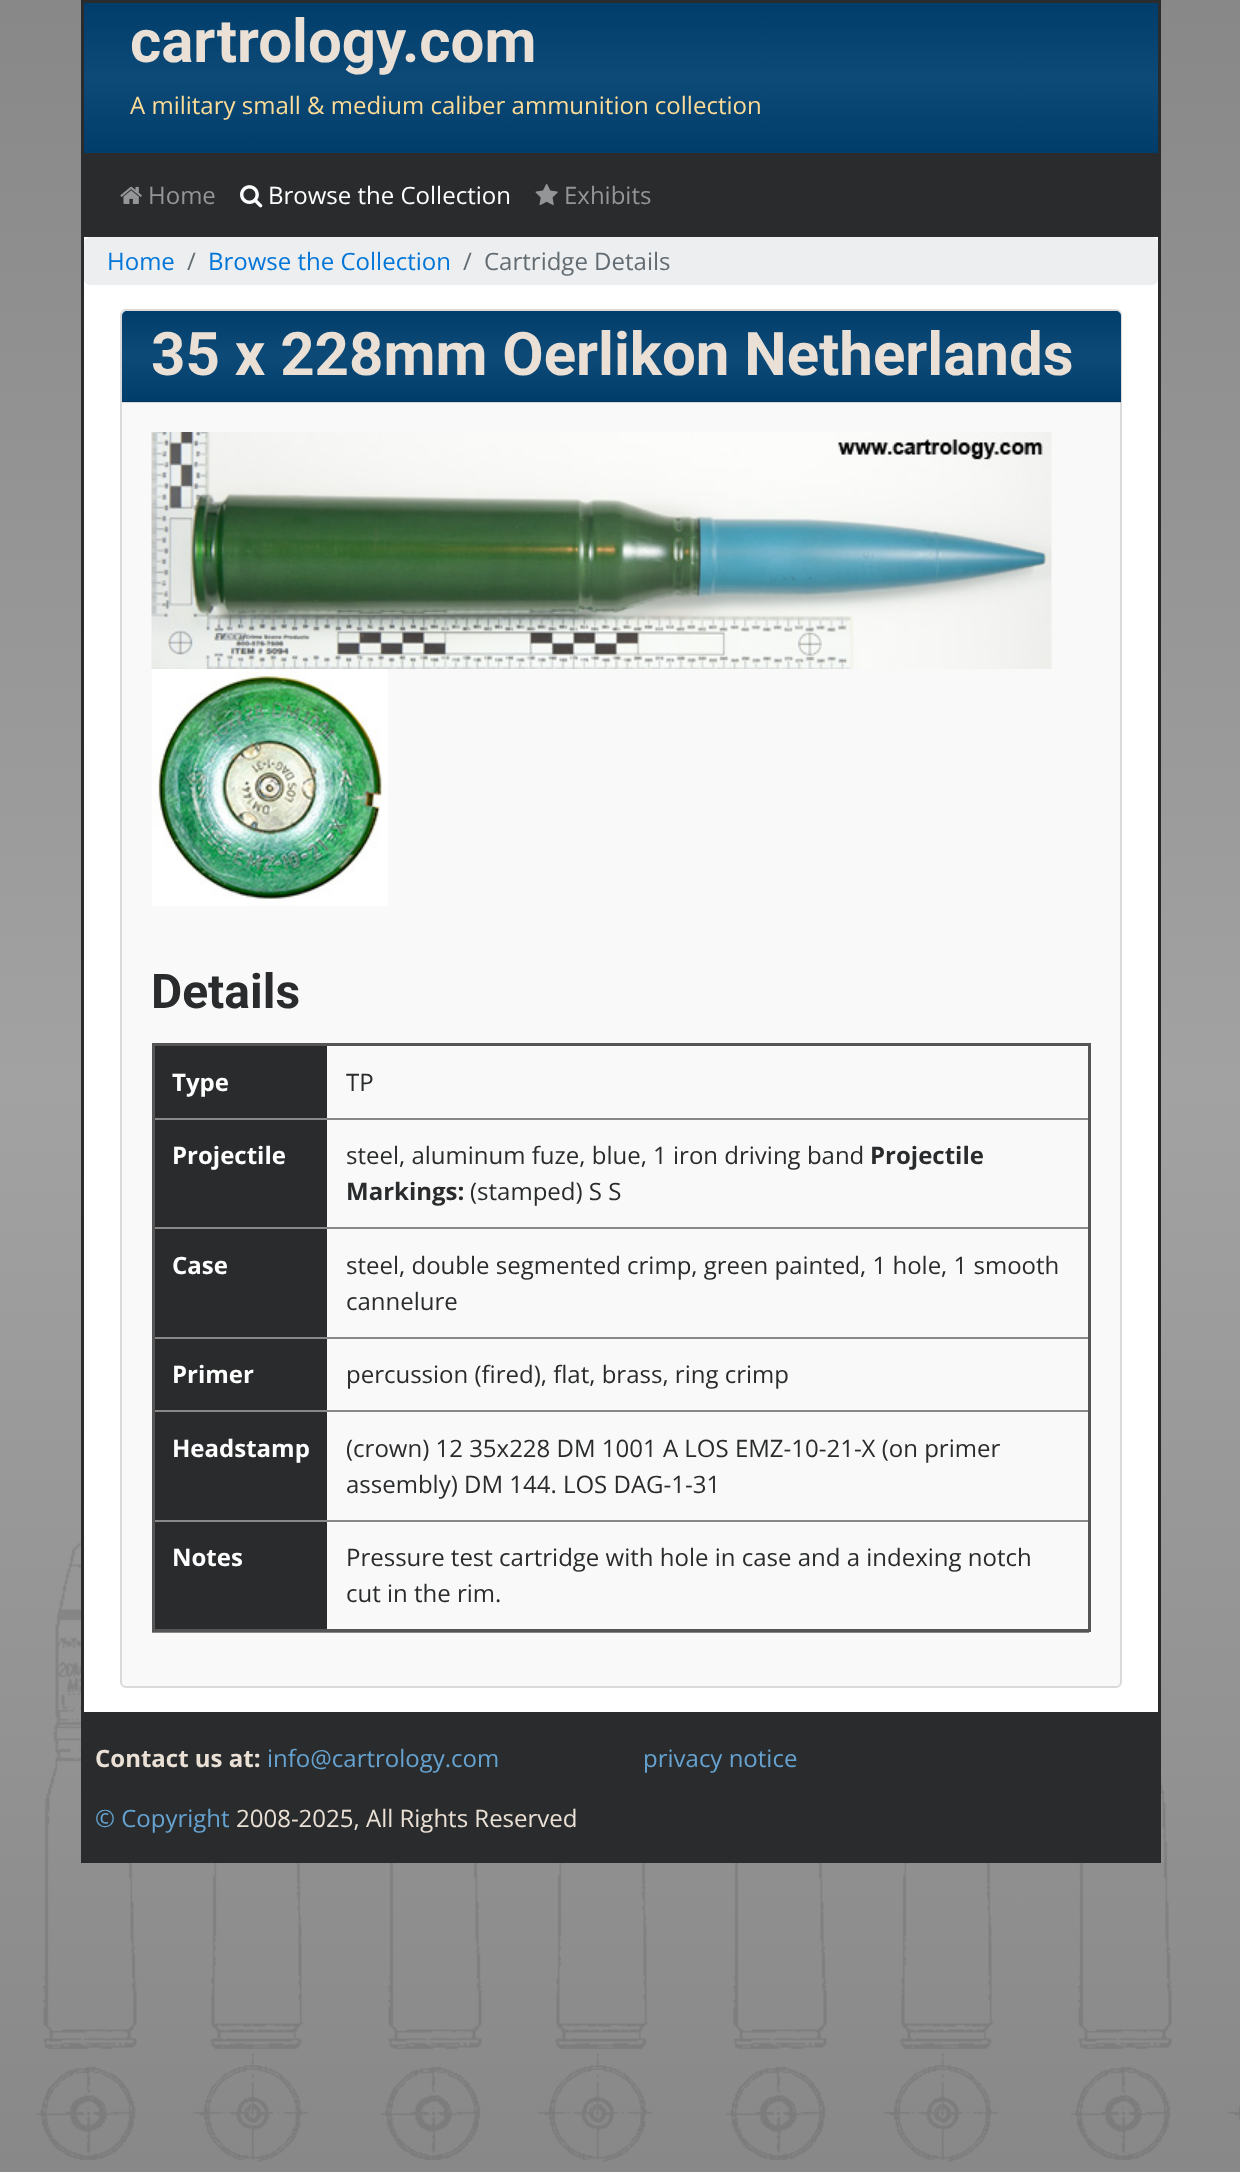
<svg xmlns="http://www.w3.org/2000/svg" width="1240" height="2172">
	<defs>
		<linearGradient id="g1" gradientUnits="userSpaceOnUse" x1="621" y1="3" x2="621" y2="153"><stop offset="0" stop-color="#003D6B" /><stop offset="0.5" stop-color="#0D4A78" /><stop offset="1" stop-color="#003D6B" /></linearGradient>
		<linearGradient id="g2" gradientUnits="userSpaceOnUse" x1="621" y1="310" x2="621" y2="401"><stop offset="0" stop-color="#003D6B" /><stop offset="0.5" stop-color="#0D4A78" /><stop offset="1" stop-color="#003D6B" /></linearGradient>
		<linearGradient id="g3" gradientUnits="userSpaceOnUse" x1="621" y1="400" x2="621" y2="491"><stop offset="0" stop-color="#003D6B" /><stop offset="0.5" stop-color="#0D4A78" /><stop offset="1" stop-color="#003D6B" /></linearGradient>
	</defs>
	<rect width="100%" height="100%" fill="#FFFFFF" />
	<image x="0" y="0" width="1240" height="2172" href="assets/img1.png" />
	<rect x="84" y="237" width="1074" height="1475" fill="#FFFFFF" />
	<rect x="82.5" y="1.5" width="1077" height="1860" fill="none" stroke="#292B2C" stroke-width="3" />
	<rect x="84" y="3" width="1074" height="150" fill="url(#g1)" />
	<text x="130" y="62" font-family="Roboto" font-size="60" font-weight="700" fill="#EAE0D5">cartrology.com</text>
	<text x="130" y="114" font-family="Open Sans" font-size="24" fill="#FEDC97">A military small &amp; medium caliber ammunition collection</text>
	<rect x="84" y="153" width="1074" height="84" fill="#292B2C" />
	<image x="120" y="186" width="22" height="18" href="assets/img2.png" />
	<text x="148" y="204" font-family="Open Sans" font-size="24" fill="#949596">Home</text>
	<image x="240" y="185" width="23" height="23" href="assets/img3.png" />
	<text x="268" y="204" font-family="Open Sans" font-size="24" fill="#FFFFFF">Browse the Collection</text>
	<image x="535" y="183" width="23" height="22" href="assets/img4.png" />
	<text x="564" y="204" font-family="Open Sans" font-size="24" fill="#949596">Exhibits</text>
	<rect x="84" y="237" width="1074" height="48" rx="6" fill="#ECEEEF" />
	<text x="107" y="270" font-family="Open Sans" font-size="24" fill="#0275D8">Home</text>
	<text x="187" y="270" font-family="Open Sans" font-size="24" fill="#636C72">/</text>
	<text x="208" y="270" font-family="Open Sans" font-size="24" fill="#0275D8">Browse the Collection</text>
	<g font-family="Open Sans" font-size="24" fill="#636C72">
		<text x="463" y="270">/</text>
		<text x="484" y="270">Cartridge Details</text>
	</g>
	<rect x="121" y="310" width="1000" height="1377" rx="5" fill="#F9F9F9" stroke="#DADADA" stroke-width="2" />
	<path d="M127 311H1116C1119 311 1121 313 1121 316V401H122V316C122 313 124 311 127 311Z" fill="url(#g2)" />
	<rect x="122" y="401" width="999" height="1" fill="url(#g3)" />
	<rect x="122" y="401" width="999" height="2" fill="#000000" fill-opacity="0.12" />
	<text x="151" y="375" font-family="Roboto" font-size="60" font-weight="700" fill="#EAE0D5">35 x 228mm Oerlikon Netherlands</text>
	<image x="151" y="432" width="901" height="237" href="assets/img5.png" />
	<image x="152" y="669" width="236" height="237" href="assets/img6.png" />
	<text x="151" y="1008" font-family="Roboto" font-size="48" font-weight="700" fill="#292B2C">Details</text>
	<rect x="152" y="1043" width="939" height="3" fill="#555555" />
	<rect x="152" y="1118" width="937" height="2" fill="#888888" />
	<rect x="152" y="1227" width="937" height="2" fill="#888888" />
	<rect x="152" y="1337" width="937" height="2" fill="#888888" />
	<rect x="152" y="1410" width="937" height="2" fill="#888888" />
	<rect x="152" y="1520" width="937" height="2" fill="#888888" />
	<rect x="1088" y="1043" width="3" height="589" fill="#555555" />
	<rect x="152" y="1629" width="939" height="3" fill="#555555" />
	<rect x="152" y="1043" width="3" height="589" fill="#555555" />
	<rect x="155" y="1046" width="172" height="72" fill="#292B2C" />
	<text x="172" y="1091" font-family="Open Sans" font-size="24" font-weight="700" fill="#FFFFFF">Type</text>
	<text x="346" y="1091" font-family="Open Sans" font-size="24" fill="#292B2C">TP</text>
	<rect x="155" y="1120" width="172" height="107" fill="#292B2C" />
	<text x="172" y="1164" font-family="Open Sans" font-size="24" font-weight="700" fill="#FFFFFF">Projectile</text>
	<text x="346" y="1164" font-family="Open Sans" font-size="24" fill="#292B2C">steel, aluminum fuze, blue, 1 iron driving band</text>
	<g font-family="Open Sans" font-size="24" font-weight="700" fill="#292B2C">
		<text x="870" y="1164">Projectile</text>
		<text x="346" y="1200">Markings:</text>
	</g>
	<text x="470" y="1200" font-family="Open Sans" font-size="24" fill="#292B2C">(stamped) S S</text>
	<rect x="155" y="1229" width="172" height="108" fill="#292B2C" />
	<text x="172" y="1274" font-family="Open Sans" font-size="24" font-weight="700" fill="#FFFFFF">Case</text>
	<g font-family="Open Sans" font-size="24" fill="#292B2C">
		<text x="346" y="1274">steel, double segmented crimp, green painted, 1 hole, 1 smooth</text>
		<text x="346" y="1310">cannelure</text>
	</g>
	<rect x="155" y="1339" width="172" height="71" fill="#292B2C" />
	<text x="172" y="1383" font-family="Open Sans" font-size="24" font-weight="700" fill="#FFFFFF">Primer</text>
	<text x="346" y="1383" font-family="Open Sans" font-size="24" fill="#292B2C">percussion (fired), flat, brass, ring crimp</text>
	<rect x="155" y="1412" width="172" height="108" fill="#292B2C" />
	<text x="172" y="1457" font-family="Open Sans" font-size="24" font-weight="700" fill="#FFFFFF">Headstamp</text>
	<g font-family="Open Sans" font-size="24" fill="#292B2C">
		<text x="346" y="1457">(crown) 12 35x228 DM 1001 A LOS EMZ-10-21-X (on primer</text>
		<text x="346" y="1493">assembly) DM 144. LOS DAG-1-31</text>
	</g>
	<rect x="155" y="1522" width="172" height="107" fill="#292B2C" />
	<text x="172" y="1566" font-family="Open Sans" font-size="24" font-weight="700" fill="#FFFFFF">Notes</text>
	<rect x="152" y="1632" width="937" height="1" fill="#888888" />
	<g font-family="Open Sans" font-size="24" fill="#292B2C">
		<text x="346" y="1566">Pressure test cartridge with hole in case and a indexing notch</text>
		<text x="346" y="1602">cut in the rim.</text>
	</g>
	<rect x="84" y="1712" width="1074" height="148" fill="#292B2C" />
	<text x="95" y="1767" font-family="Open Sans" font-size="24" font-weight="700" fill="#EAE0D5">Contact us at:</text>
	<g font-family="Open Sans" font-size="24" fill="#66A3D1">
		<text x="267" y="1767">info@cartrology.com</text>
		<text x="643" y="1767">privacy notice</text>
		<text x="95" y="1827">© Copyright</text>
	</g>
	<text x="236" y="1827" font-family="Open Sans" font-size="24" fill="#EAE0D5">2008-2025, All Rights Reserved</text>
</svg>
